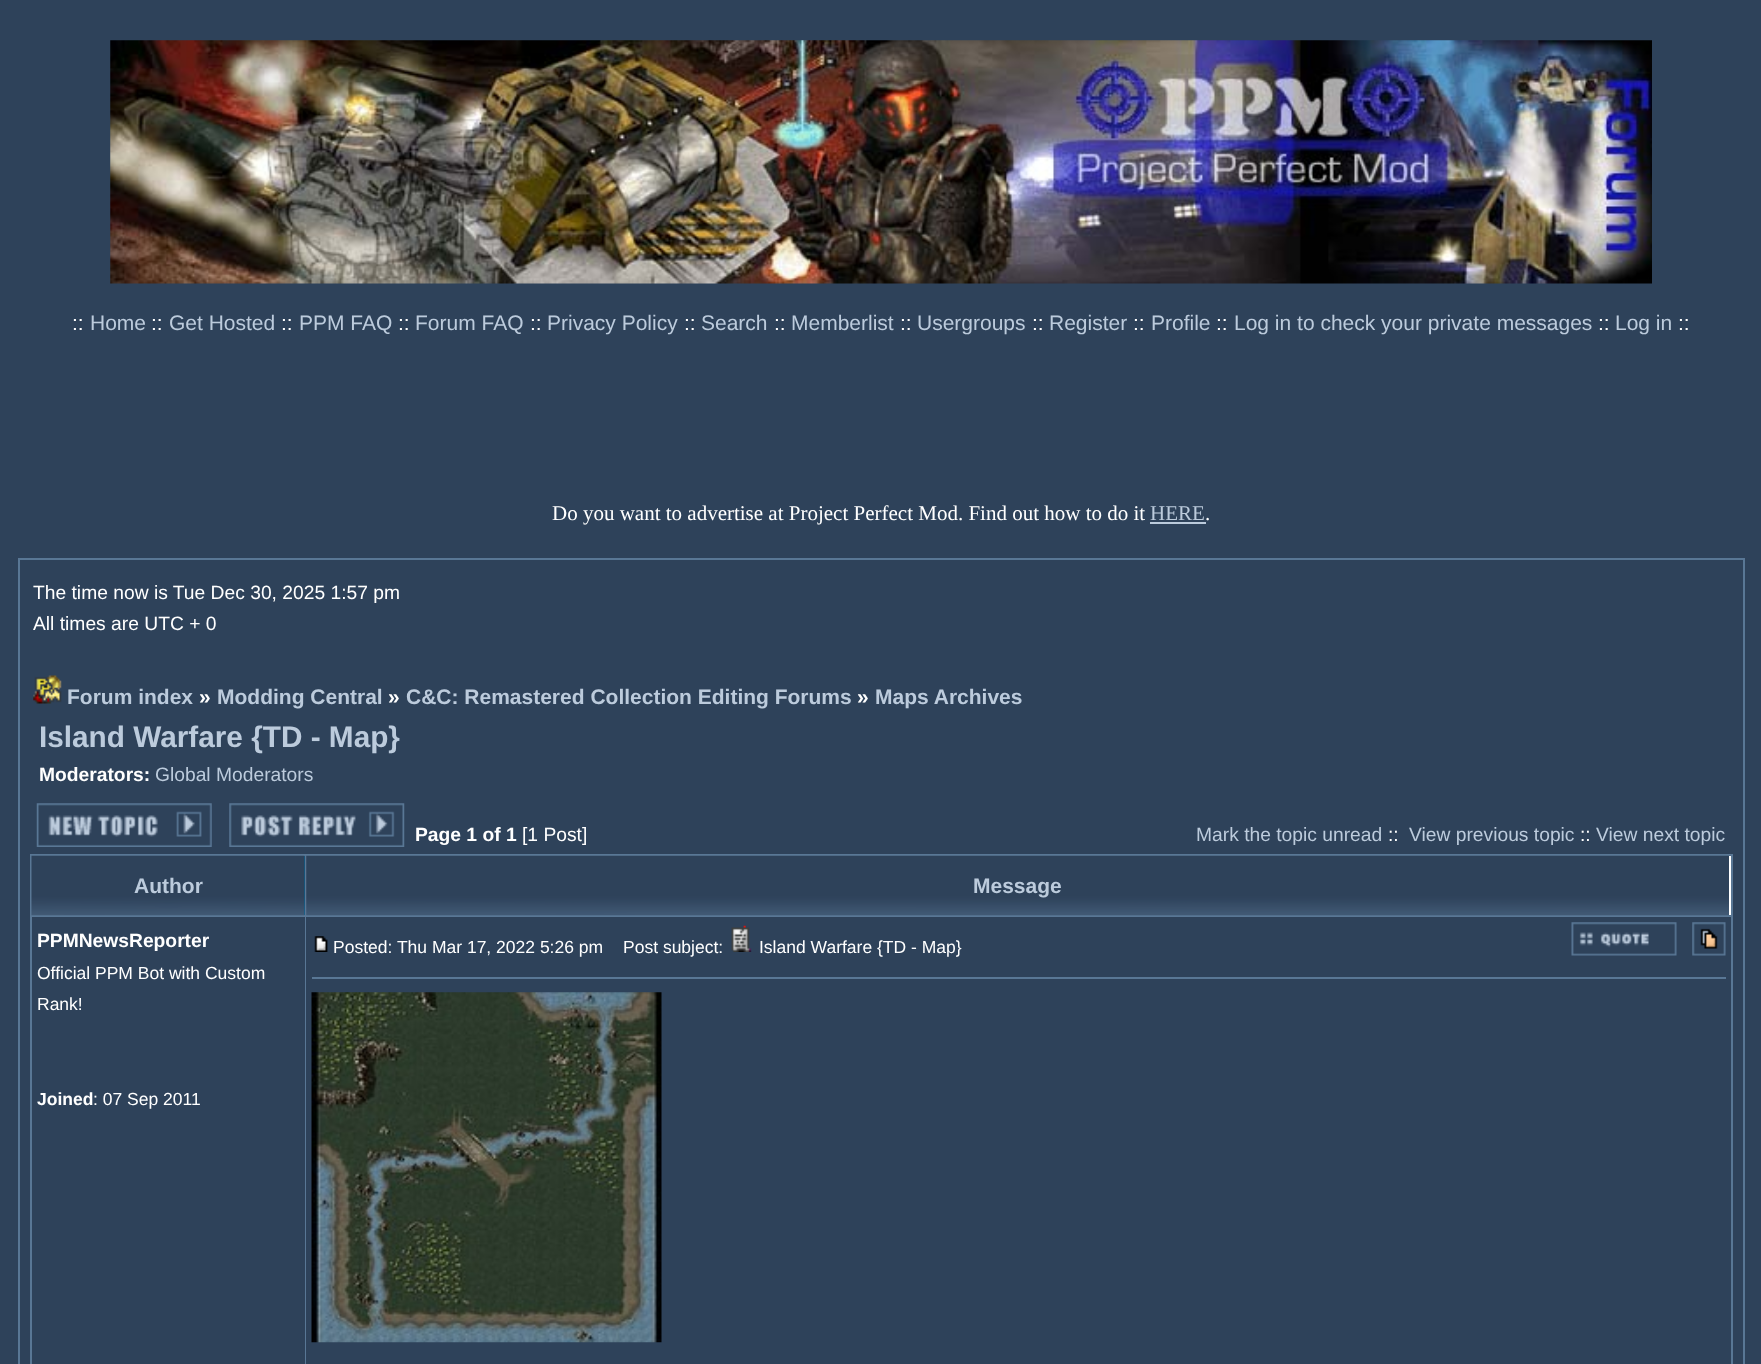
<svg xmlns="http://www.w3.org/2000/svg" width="1761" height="1364">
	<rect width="100%" height="100%" fill="#2E425A" />
	<image x="110" y="40" width="1542" height="244" href="assets/img1.png" />
	<text x="72" y="330" font-family="Liberation Sans" font-size="21" fill="#FFFFFF">::</text>
	<text x="90" y="330" font-family="Liberation Sans" font-size="21" fill="#BCCBDC">Home</text>
	<text x="151" y="330" font-family="Liberation Sans" font-size="21" fill="#FFFFFF">::</text>
	<text x="169" y="330" font-family="Liberation Sans" font-size="21" fill="#BCCBDC">Get Hosted</text>
	<text x="281" y="330" font-family="Liberation Sans" font-size="21" fill="#FFFFFF">::</text>
	<text x="299" y="330" font-family="Liberation Sans" font-size="21" fill="#BCCBDC">PPM FAQ</text>
	<text x="398" y="330" font-family="Liberation Sans" font-size="21" fill="#FFFFFF">::</text>
	<text x="415" y="330" font-family="Liberation Sans" font-size="21" fill="#BCCBDC">Forum FAQ</text>
	<text x="530" y="330" font-family="Liberation Sans" font-size="21" fill="#FFFFFF">::</text>
	<text x="547" y="330" font-family="Liberation Sans" font-size="21" fill="#BCCBDC">Privacy Policy</text>
	<text x="684" y="330" font-family="Liberation Sans" font-size="21" fill="#FFFFFF">::</text>
	<text x="701" y="330" font-family="Liberation Sans" font-size="21" fill="#BCCBDC">Search</text>
	<text x="774" y="330" font-family="Liberation Sans" font-size="21" fill="#FFFFFF">::</text>
	<text x="791" y="330" font-family="Liberation Sans" font-size="21" fill="#BCCBDC">Memberlist</text>
	<text x="900" y="330" font-family="Liberation Sans" font-size="21" fill="#FFFFFF">::</text>
	<text x="917" y="330" font-family="Liberation Sans" font-size="21" fill="#BCCBDC">Usergroups</text>
	<text x="1032" y="330" font-family="Liberation Sans" font-size="21" fill="#FFFFFF">::</text>
	<text x="1049" y="330" font-family="Liberation Sans" font-size="21" fill="#BCCBDC">Register</text>
	<text x="1133" y="330" font-family="Liberation Sans" font-size="21" fill="#FFFFFF">::</text>
	<text x="1151" y="330" font-family="Liberation Sans" font-size="21" fill="#BCCBDC">Profile</text>
	<text x="1216" y="330" font-family="Liberation Sans" font-size="21" fill="#FFFFFF">::</text>
	<text x="1234" y="330" font-family="Liberation Sans" font-size="21" fill="#BCCBDC">Log in to check your private messages</text>
	<text x="1598" y="330" font-family="Liberation Sans" font-size="21" fill="#FFFFFF">::</text>
	<text x="1615" y="330" font-family="Liberation Sans" font-size="21" fill="#BCCBDC">Log in</text>
	<text x="1678" y="330" font-family="Liberation Sans" font-size="21" fill="#FFFFFF">::</text>
	<text x="552" y="520" font-family="Liberation Serif" font-size="21" fill="#FFFFFF">Do you want to advertise at Project Perfect Mod. Find out how to do it</text>
	<text x="1150" y="520" font-family="Liberation Serif" font-size="21" fill="#BCCBDC">HERE</text>
	<rect x="1150" y="522" width="56" height="2" fill="#BCCBDC" />
	<text x="1205" y="520" font-family="Liberation Serif" font-size="21" fill="#FFFFFF">.</text>
	<rect x="19" y="559" width="1725" height="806" fill="none" stroke="#597795" stroke-width="2" />
	<g font-family="Liberation Sans" font-size="19.25" fill="#FFFFFF">
		<text x="33" y="599">The time now is Tue Dec 30, 2025 1:57 pm</text>
		<text x="33" y="630">All times are UTC + 0</text>
	</g>
	<image x="33" y="675" width="29" height="29" href="assets/img2.png" />
	<text x="67" y="704" font-family="Liberation Sans" font-size="21" font-weight="700" fill="#BCCBDC">Forum index</text>
	<text x="199" y="704" font-family="Liberation Sans" font-size="21" font-weight="700" fill="#FFFFFF">»</text>
	<text x="217" y="704" font-family="Liberation Sans" font-size="21" font-weight="700" fill="#BCCBDC">Modding Central</text>
	<text x="388" y="704" font-family="Liberation Sans" font-size="21" font-weight="700" fill="#FFFFFF">»</text>
	<text x="406" y="704" font-family="Liberation Sans" font-size="21" font-weight="700" fill="#BCCBDC">C&amp;C: Remastered Collection Editing Forums</text>
	<text x="857" y="704" font-family="Liberation Sans" font-size="21" font-weight="700" fill="#FFFFFF">»</text>
	<text x="875" y="704" font-family="Liberation Sans" font-size="21" font-weight="700" fill="#BCCBDC">Maps Archives</text>
	<text x="39" y="747" font-family="Liberation Sans" font-size="29.75" font-weight="700" fill="#BCCBDC">Island Warfare {TD - Map}</text>
	<text x="39" y="781" font-family="Liberation Sans" font-size="19.25" font-weight="700" fill="#FFFFFF">Moderators:</text>
	<text x="155" y="781" font-family="Liberation Sans" font-size="19.25" fill="#BCCBDC">Global Moderators</text>
	<image x="36" y="803" width="176" height="44" href="assets/img3.png" />
	<image x="229" y="803" width="176" height="44" href="assets/img4.png" />
	<text x="415" y="841" font-family="Liberation Sans" font-size="19.25" font-weight="700" fill="#FFFFFF">Page 1 of 1</text>
	<text x="522" y="841" font-family="Liberation Sans" font-size="19.25" fill="#FFFFFF">[1 Post]</text>
	<text x="1196" y="841" font-family="Liberation Sans" font-size="19.25" fill="#BCCBDC">Mark the topic unread</text>
	<text x="1388" y="841" font-family="Liberation Sans" font-size="19.25" fill="#FFFFFF">::</text>
	<text x="1409" y="841" font-family="Liberation Sans" font-size="19.25" fill="#BCCBDC">View previous topic</text>
	<text x="1580" y="841" font-family="Liberation Sans" font-size="19.25" fill="#FFFFFF">::</text>
	<text x="1596" y="841" font-family="Liberation Sans" font-size="19.25" fill="#BCCBDC">View next topic</text>
	<rect x="30" y="854" width="1703" height="510" fill="#597795" />
	<rect x="304" y="856" width="1" height="59" fill="#006699" />
	<image x="31" y="855" width="274" height="61" href="assets/img5.png" />
	<text x="134" y="893" font-family="Liberation Sans" font-size="21" font-weight="700" fill="#BCCBDC">Author</text>
	<image x="306" y="855" width="1425" height="61" href="assets/img6.png" />
	<rect x="1729" y="856" width="2" height="59" fill="#FFFFFF" />
	<text x="973" y="893" font-family="Liberation Sans" font-size="21" font-weight="700" fill="#BCCBDC">Message</text>
	<rect x="32" y="917" width="273" height="447" fill="#2E425A" />
	<text x="37" y="947" font-family="Liberation Sans" font-size="19.25" font-weight="700" fill="#FFFFFF">PPMNewsReporter</text>
	<g font-family="Liberation Sans" font-size="17.5" fill="#FFFFFF">
		<text x="37" y="979">Official PPM Bot with Custom</text>
		<text x="37" y="1010">Rank!</text>
	</g>
	<text x="37" y="1105" font-family="Liberation Sans" font-size="17.5" font-weight="700" fill="#FFFFFF">Joined</text>
	<text x="93" y="1105" font-family="Liberation Sans" font-size="17.5" fill="#FFFFFF">: 07 Sep 2011</text>
	<rect x="306" y="917" width="1425" height="447" fill="#2E425A" />
	<image x="314" y="936" width="14" height="16" href="assets/img7.png" />
	<g font-family="Liberation Sans" font-size="17.5" fill="#FFFFFF">
		<text x="333" y="953">Posted: Thu Mar 17, 2022 5:26 pm</text>
		<text x="623" y="953">Post subject:</text>
	</g>
	<image x="731" y="925" width="21" height="27" href="assets/img8.png" />
	<text x="759" y="953" font-family="Liberation Sans" font-size="17.5" fill="#FFFFFF">Island Warfare {TD - Map}</text>
	<image x="1571" y="922" width="106" height="34" href="assets/img9.png" />
	<image x="1692" y="922" width="34" height="34" href="assets/img10.png" />
	<rect x="312" y="977" width="1414" height="2" fill="#597795" />
	<image x="311" y="992" width="351" height="351" href="assets/img11.png" />
</svg>
